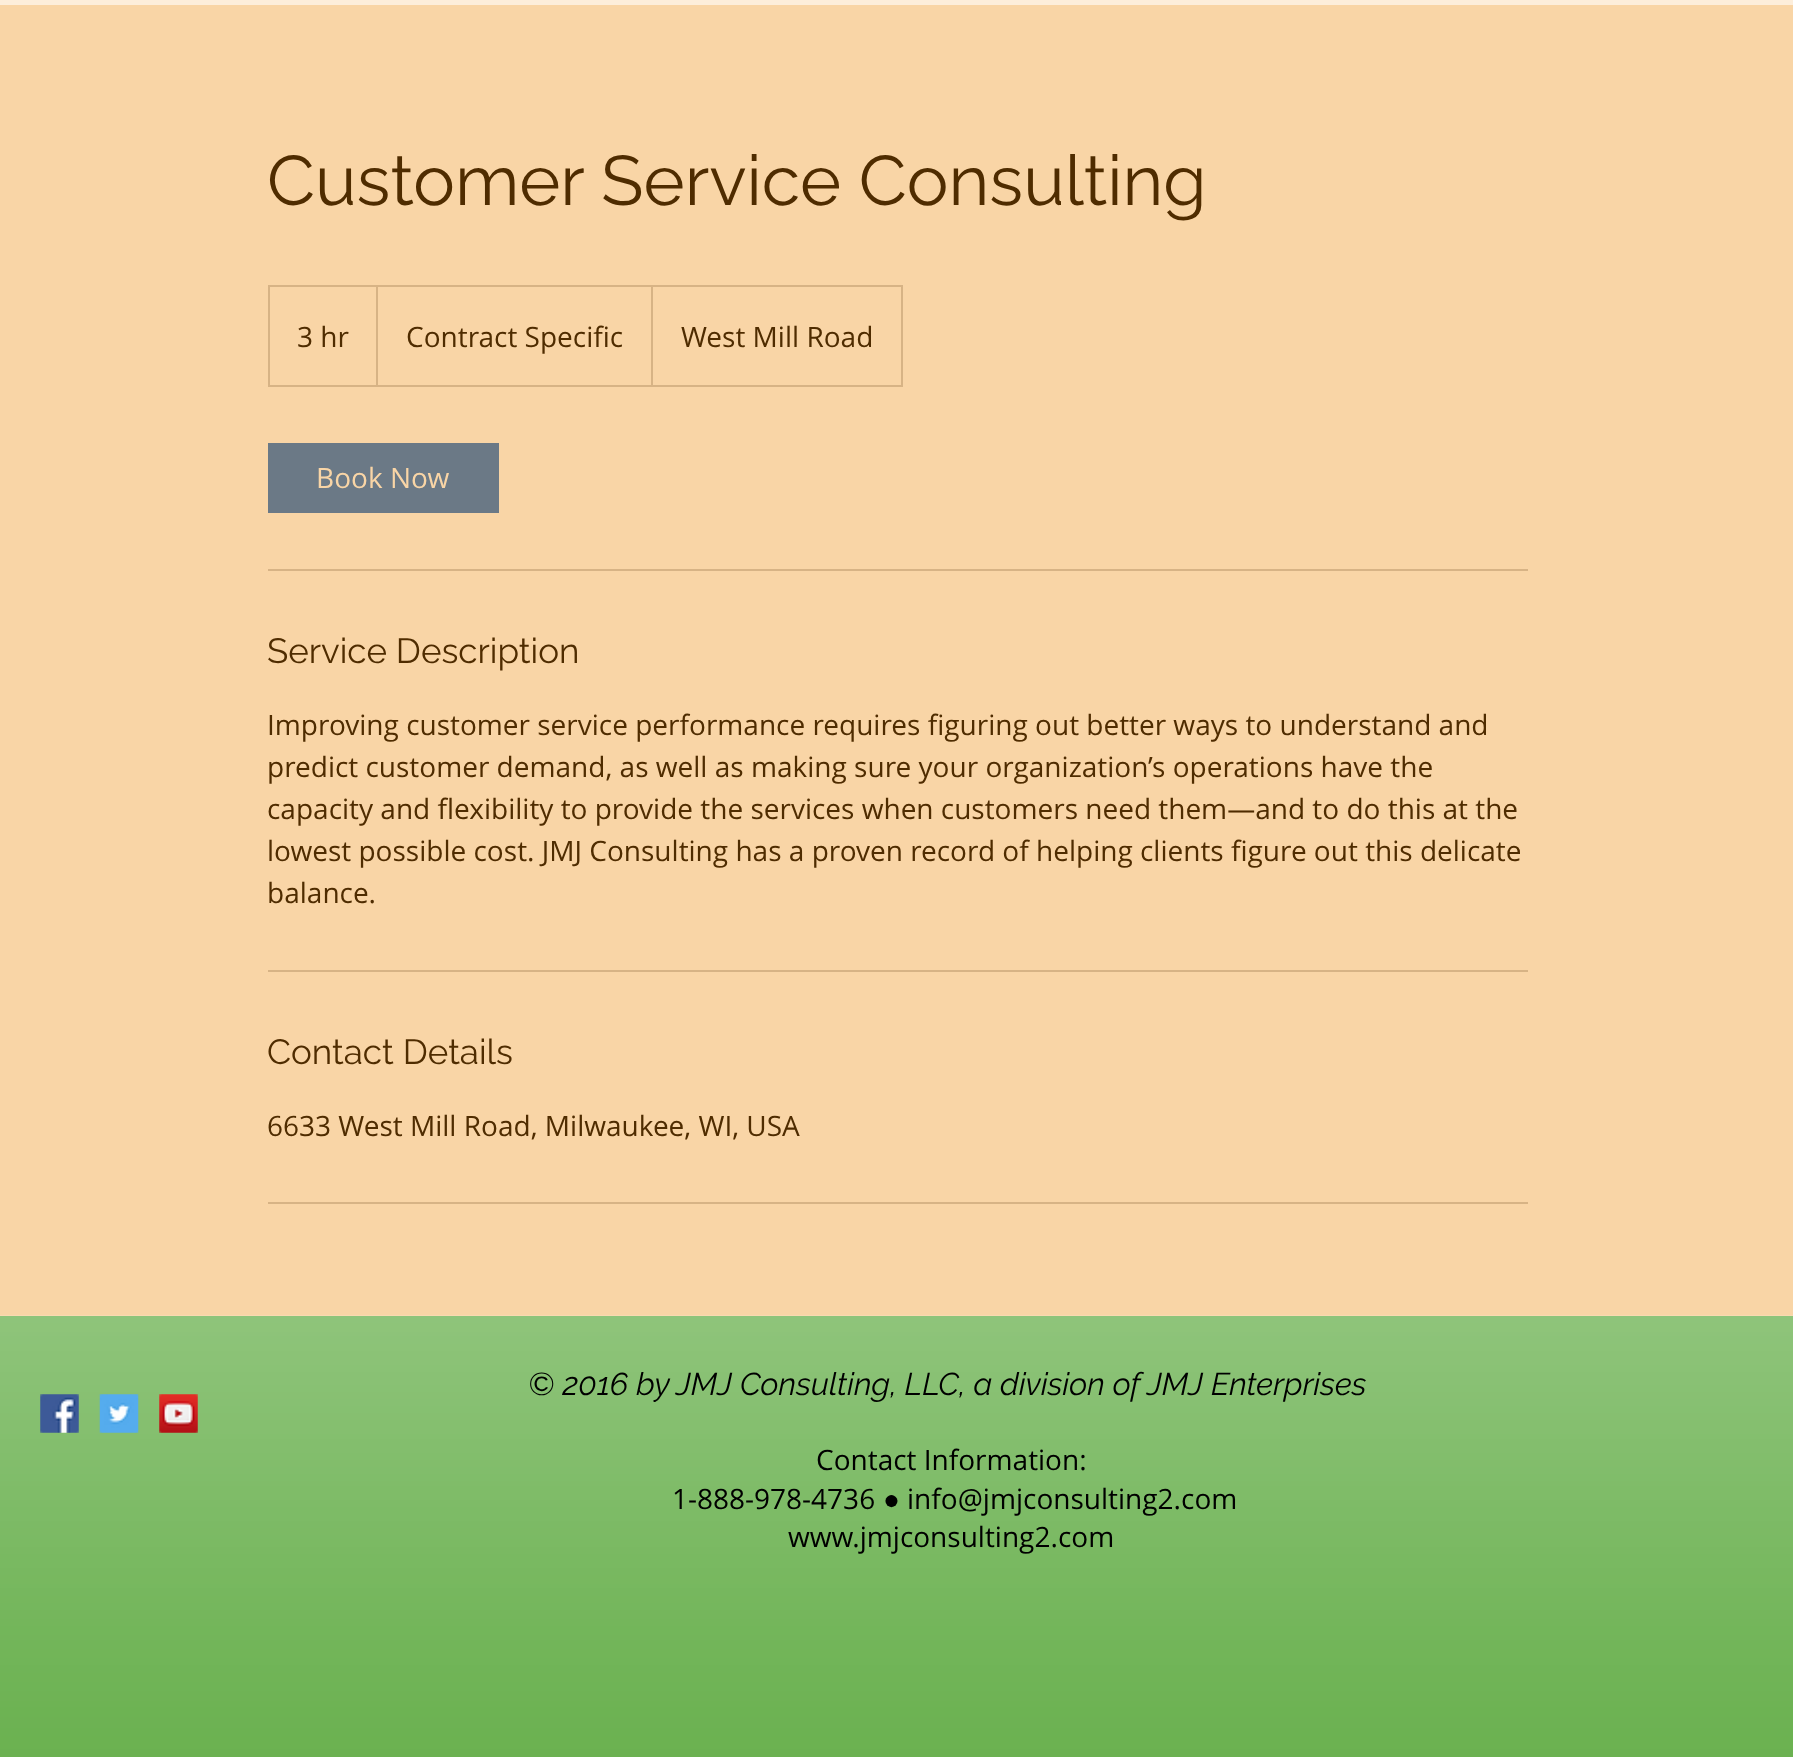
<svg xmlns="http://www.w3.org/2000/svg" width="1793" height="1757">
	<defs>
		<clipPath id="clip1"><rect x="270" y="287" width="631" height="98" /></clipPath>
	</defs>
	<rect width="100%" height="100%" fill="#F9D5A6" />
	<rect x="0" y="0" width="1793" height="5" fill="#FDEEDB" />
	<text x="267" y="205" font-family="Raleway" font-size="70" fill="#4F2C00">Customer Service Consulting</text>
	<rect x="269" y="286" width="633" height="100" fill="none" stroke="#D7B385" stroke-width="2" />
	<text x="297" y="347" font-family="Open Sans" font-size="28" fill="#4F2C00">3 hr</text>
	<g clip-path="url(#clip1)">
		<path d="M376 385V285L378 287V385Z" fill="#D7B385" />
	</g>
	<text x="406" y="347" font-family="Open Sans" font-size="28" fill="#4F2C00">Contract Specific</text>
	<g clip-path="url(#clip1)">
		<path d="M651 385V285L653 287V385Z" fill="#D7B385" />
	</g>
	<text x="681" y="347" font-family="Open Sans" font-size="28" fill="#4F2C00">West Mill Road</text>
	<rect x="268" y="443" width="231" height="70" fill="#6B7986" />
	<text x="316" y="488" font-family="Open Sans" font-size="28" fill="#F9D5A6">Book Now</text>
	<rect x="268" y="569" width="1260" height="2" fill="#D7B385" />
	<text x="267" y="663" font-family="Raleway" font-size="35" fill="#4F2C00">Service Description</text>
	<g font-family="Open Sans" font-size="28" fill="#4F2C00">
		<text x="267" y="735">Improving customer service performance requires figuring out better ways to understand and</text>
		<text x="267" y="777">predict customer demand, as well as making sure your organization’s operations have the</text>
		<text x="267" y="819">capacity and flexibility to provide the services when customers need them—and to do this at the</text>
		<text x="267" y="861">lowest possible cost. JMJ Consulting has a proven record of helping clients figure out this delicate</text>
		<text x="267" y="903">balance.</text>
	</g>
	<rect x="268" y="970" width="1260" height="2" fill="#D7B385" />
	<text x="267" y="1064" font-family="Raleway" font-size="35" fill="#4F2C00">Contact Details</text>
	<text x="267" y="1136" font-family="Open Sans" font-size="28" fill="#4F2C00">6633 West Mill Road, Milwaukee, WI, USA</text>
	<rect x="268" y="1202" width="1260" height="2" fill="#D7B385" />
	<rect x="0" y="1316" width="1793" height="441" fill="#68B04D" />
	<image x="0" y="1315" width="1793" height="442" href="assets/img1.png" />
	<image x="40" y="1394" width="39" height="39" href="assets/img2.png" />
	<image x="99" y="1394" width="40" height="39" href="assets/img3.png" />
	<image x="159" y="1394" width="39" height="39" href="assets/img4.png" />
	<text x="528" y="1395" font-family="Raleway" font-size="31.5" font-style="italic" fill="#000000">© 2016 by JMJ Consulting, LLC, a division of JMJ Enterprises</text>
	<g font-family="Open Sans" font-size="28" fill="#000000">
		<text x="816" y="1470">Contact Information:</text>
		<text x="672" y="1509">1-888-978-4736</text>
	</g>
	<text x="883" y="1509" font-family="Liberation Sans" font-size="28" fill="#000000">●</text>
	<g font-family="Open Sans" font-size="28" fill="#000000">
		<text x="907" y="1509">info@jmjconsulting2.com</text>
		<text x="788" y="1547">www.jmjconsulting2.com</text>
	</g>
</svg>
